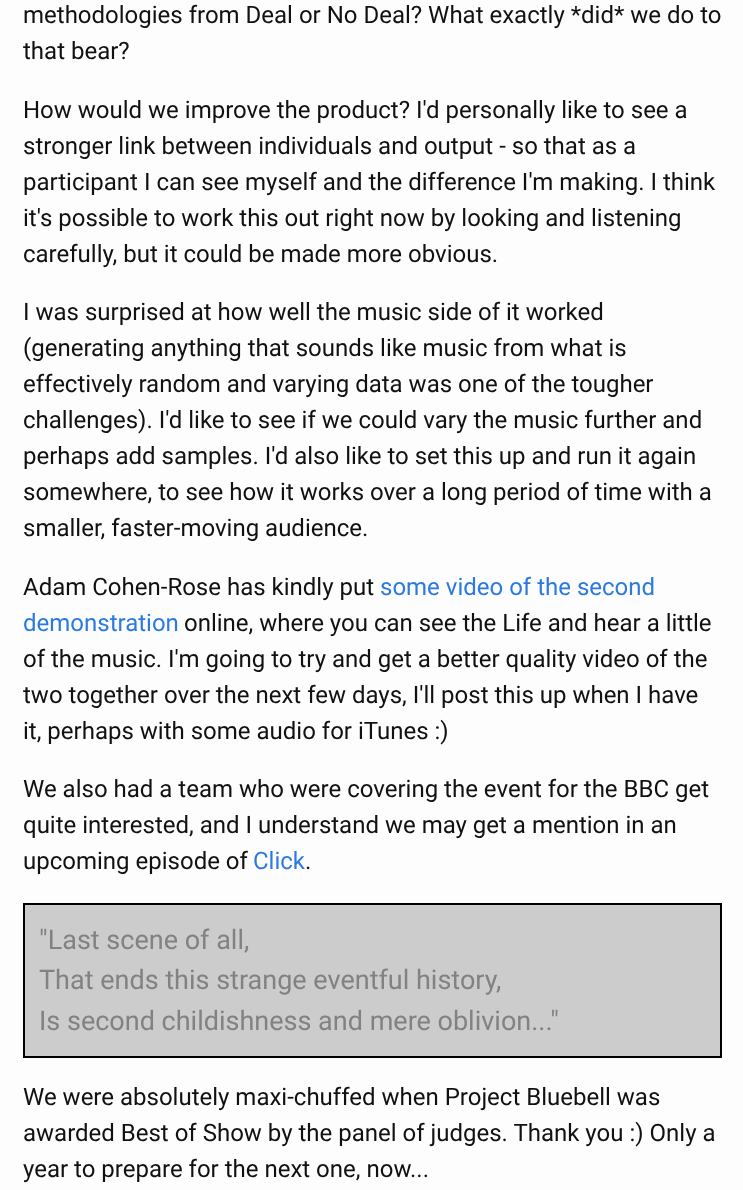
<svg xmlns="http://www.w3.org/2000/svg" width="743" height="1190">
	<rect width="100%" height="100%" fill="#FDFDFD" />
	<g font-family="Roboto" font-size="24" fill="#111111">
		<text x="23" y="23">methodologies from Deal or No Deal? What exactly *did* we do to</text>
		<text x="23" y="59">that bear?</text>
		<text x="23" y="118">How would we improve the product? I'd personally like to see a</text>
		<text x="23" y="154">stronger link between individuals and output - so that as a</text>
		<text x="23" y="190">participant I can see myself and the difference I'm making. I think</text>
		<text x="23" y="226">it's possible to work this out right now by looking and listening</text>
		<text x="23" y="262">carefully, but it could be made more obvious.</text>
		<text x="23" y="320">I was surprised at how well the music side of it worked</text>
		<text x="23" y="356">(generating anything that sounds like music from what is</text>
		<text x="23" y="392">effectively random and varying data was one of the tougher</text>
		<text x="23" y="428">challenges). I'd like to see if we could vary the music further and</text>
		<text x="23" y="464">perhaps add samples. I'd also like to set this up and run it again</text>
		<text x="23" y="500">somewhere, to see how it works over a long period of time with a</text>
		<text x="23" y="536">smaller, faster-moving audience.</text>
		<text x="23" y="595">Adam Cohen-Rose has kindly put</text>
	</g>
	<g font-family="Roboto" font-size="24" fill="#2A7AE2">
		<text x="380" y="595">some video of the second</text>
		<text x="23" y="631">demonstration</text>
	</g>
	<g font-family="Roboto" font-size="24" fill="#111111">
		<text x="184" y="631">online, where you can see the Life and hear a little</text>
		<text x="23" y="667">of the music. I'm going to try and get a better quality video of the</text>
		<text x="23" y="703">two together over the next few days, I'll post this up when I have</text>
		<text x="23" y="739">it, perhaps with some audio for iTunes :)</text>
		<text x="23" y="797">We also had a team who were covering the event for the BBC get</text>
		<text x="23" y="833">quite interested, and I understand we may get a mention in an</text>
		<text x="23" y="869">upcoming episode of</text>
	</g>
	<text x="253" y="869" font-family="Roboto" font-size="24" fill="#2A7AE2">Click</text>
	<text x="305" y="869" font-family="Roboto" font-size="24" fill="#111111">.</text>
	<rect x="24" y="904" width="697" height="153" fill="#CCCCCC" stroke="#000000" stroke-width="2" />
	<g font-family="Roboto" font-size="27" fill="#828282">
		<text x="39" y="949">"Last scene of all,</text>
		<text x="39" y="989">That ends this strange eventful history,</text>
		<text x="39" y="1030">Is second childishness and mere oblivion..."</text>
	</g>
	<g font-family="Roboto" font-size="24" fill="#111111">
		<text x="23" y="1105">We were absolutely maxi-chuffed when Project Bluebell was</text>
		<text x="23" y="1141">awarded Best of Show by the panel of judges. Thank you :) Only a</text>
		<text x="23" y="1177">year to prepare for the next one, now...</text>
	</g>
</svg>
